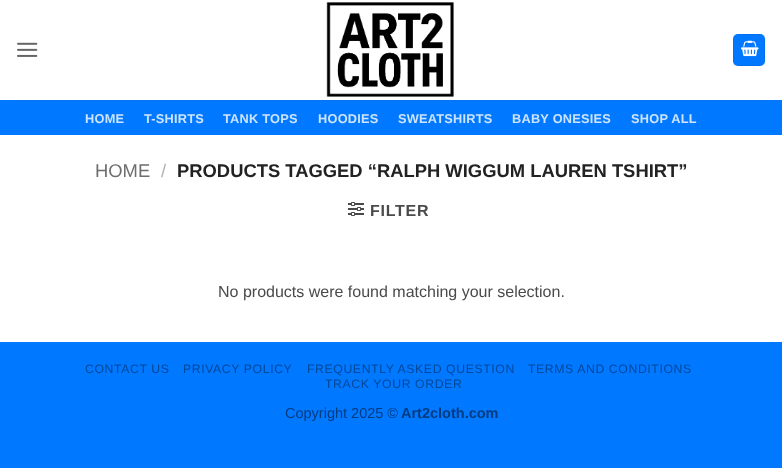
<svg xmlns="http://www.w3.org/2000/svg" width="782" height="468">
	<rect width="100%" height="100%" fill="#0078FF" />
	<rect x="0" y="0" width="782" height="342" fill="#FFFFFF" />
	<image x="17" y="42" width="21" height="15" href="assets/img1.png" />
	<image x="326" y="2" width="128" height="95" href="assets/img2.png" />
	<rect x="733" y="34" width="32" height="32" rx="5" fill="#0078FF" />
	<rect x="733.5" y="34.5" width="31" height="31" fill="none" stroke="#000000" stroke-opacity="0.05" />
	<image x="741" y="40" width="18" height="17" href="assets/img3.png" />
	<rect x="0" y="100" width="782" height="35" fill="#0078FF" />
	<rect x="15" y="100" width="752" height="1" fill="#0773ED" />
	<g font-family="Liberation Sans" font-size="12.75" font-weight="700" letter-spacing="0.25" fill="#CCE4FF">
		<text x="85" y="123">HOME</text>
		<text x="144" y="123">T-SHIRTS</text>
		<text x="223" y="123">TANK TOPS</text>
		<text x="318" y="123">HOODIES</text>
		<text x="398" y="123">SWEATSHIRTS</text>
		<text x="512" y="123">BABY ONESIES</text>
		<text x="631" y="123">SHOP ALL</text>
	</g>
	<text x="95" y="177" font-family="Liberation Sans" font-size="18.4" fill="#6E6E6E">HOME</text>
	<text x="161" y="177" font-family="Liberation Sans" font-size="18.4" fill="#B2B2B2">/</text>
	<text x="177" y="177" font-family="Liberation Sans" font-size="18.4" font-weight="700" fill="#222222">PRODUCTS TAGGED “RALPH WIGGUM LAUREN TSHIRT”</text>
	<image x="348" y="202" width="16" height="14" href="assets/img4.png" />
	<text x="370" y="216" font-family="Liberation Sans" font-size="16" font-weight="700" letter-spacing="0.75" fill="#4A4A4A">FILTER</text>
	<text x="218" y="297" font-family="Liberation Sans" font-size="16" fill="#4A4A4A">No products were found matching your selection.</text>
	<g font-family="Liberation Sans" font-size="12.25" letter-spacing="0.6" fill="#004899">
		<text x="85" y="373">CONTACT US</text>
		<text x="183" y="373">PRIVACY POLICY</text>
		<text x="307" y="373">FREQUENTLY ASKED QUESTION</text>
		<text x="528" y="373">TERMS AND CONDITIONS</text>
		<text x="325" y="388">TRACK YOUR ORDER</text>
	</g>
	<text x="285" y="418" font-family="Liberation Sans" font-size="14.5" fill="#003C80">Copyright 2025 ©</text>
	<text x="401" y="418" font-family="Liberation Sans" font-size="14.5" font-weight="700" fill="#003C80">Art2cloth.com</text>
</svg>
